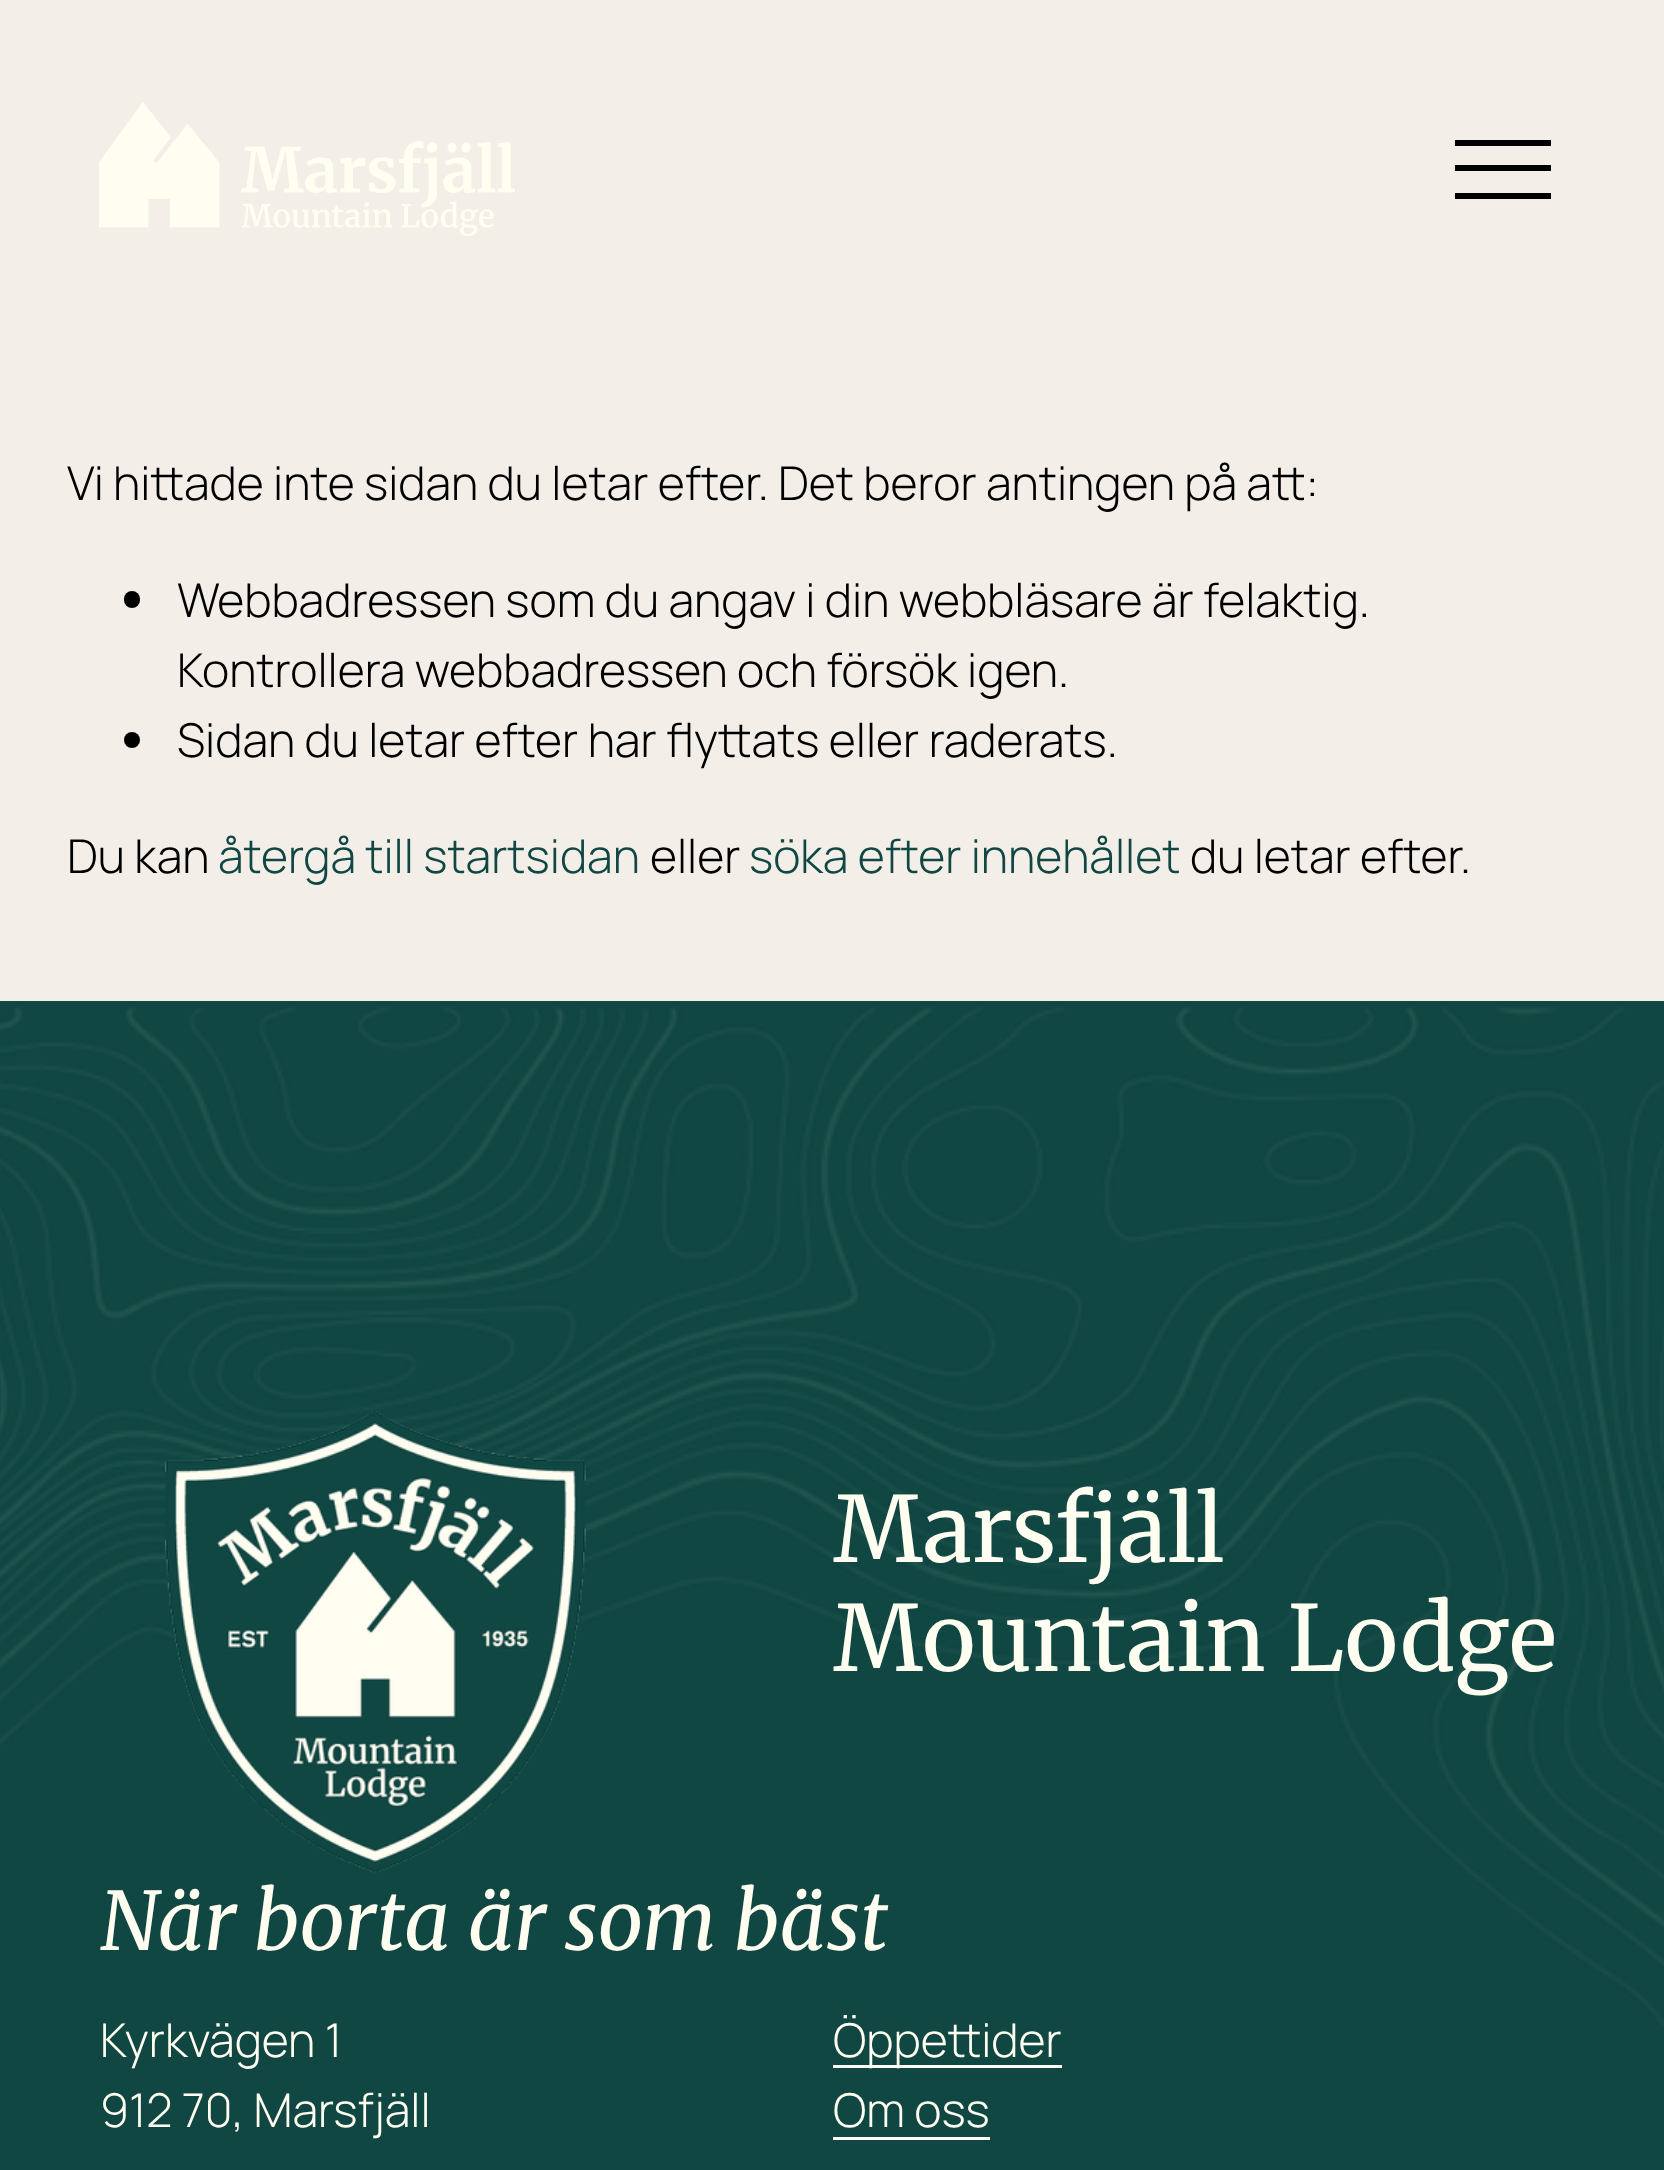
<svg xmlns="http://www.w3.org/2000/svg" width="1664" height="2170">
	<rect width="100%" height="100%" fill="#F3EFE8" />
	<image x="99" y="102" width="416" height="134" href="assets/img1.png" />
	<rect x="1455" y="140" width="96" height="6" fill="#000000" />
	<rect x="1455" y="165" width="96" height="6" fill="#000000" />
	<rect x="1455" y="193" width="96" height="6" fill="#000000" />
	<text x="67" y="500" font-family="Manrope" font-size="46.6" font-weight="300" fill="#000000">Vi hittade inte sidan du letar efter. Det beror antingen på att:</text>
	<rect x="124" y="591" width="16" height="17" rx="8" fill="#000000" />
	<g font-family="Manrope" font-size="46.6" font-weight="300" fill="#000000">
		<text x="177" y="617">Webbadressen som du angav i din webbläsare är felaktig.</text>
		<text x="177" y="687">Kontrollera webbadressen och försök igen.</text>
	</g>
	<circle cx="132" cy="740" r="8" fill="#000000" />
	<g font-family="Manrope" font-size="46.6" font-weight="300" fill="#000000">
		<text x="177" y="757">Sidan du letar efter har flyttats eller raderats.</text>
		<text x="67" y="873">Du kan</text>
	</g>
	<text x="218" y="873" font-family="Manrope" font-size="46.6" font-weight="300" fill="#114743">återgå till startsidan</text>
	<text x="650" y="873" font-family="Manrope" font-size="46.6" font-weight="300" fill="#000000">eller</text>
	<text x="749" y="873" font-family="Manrope" font-size="46.6" font-weight="300" fill="#114743">söka efter innehållet</text>
	<text x="1190" y="873" font-family="Manrope" font-size="46.6" font-weight="300" fill="#000000">du letar efter.</text>
	<rect x="0" y="1001" width="1664" height="1169" fill="#114743" />
	<image x="0" y="1007" width="1664" height="1020" href="assets/img2.png" />
	<image x="165" y="1411" width="421" height="462" href="assets/img3.png" />
	<g font-family="Merriweather" font-size="91" fill="#FFFEF0">
		<text x="833" y="1562">Marsfjäll</text>
		<text x="833" y="1671">Mountain Lodge</text>
	</g>
	<text x="100" y="1950" font-family="Merriweather" font-size="80.5" font-style="italic" fill="#FFFEF0">När borta är som bäst</text>
	<g font-family="Manrope" font-size="46.6" font-weight="300" fill="#FFFEF0">
		<text x="100" y="2057">Kyrkvägen 1</text>
		<text x="100" y="2127">912 70, Marsfjäll</text>
	</g>
	<rect x="833" y="2065" width="229" height="3" fill="#FFFEF0" />
	<g font-family="Manrope" font-size="46.6" font-weight="300" fill="#FFFEF0">
		<text x="833" y="2057">Öppettider</text>
		<text x="833" y="2127">Om oss</text>
	</g>
	<rect x="833" y="2137" width="157" height="3" fill="#FFFEF0" />
</svg>
